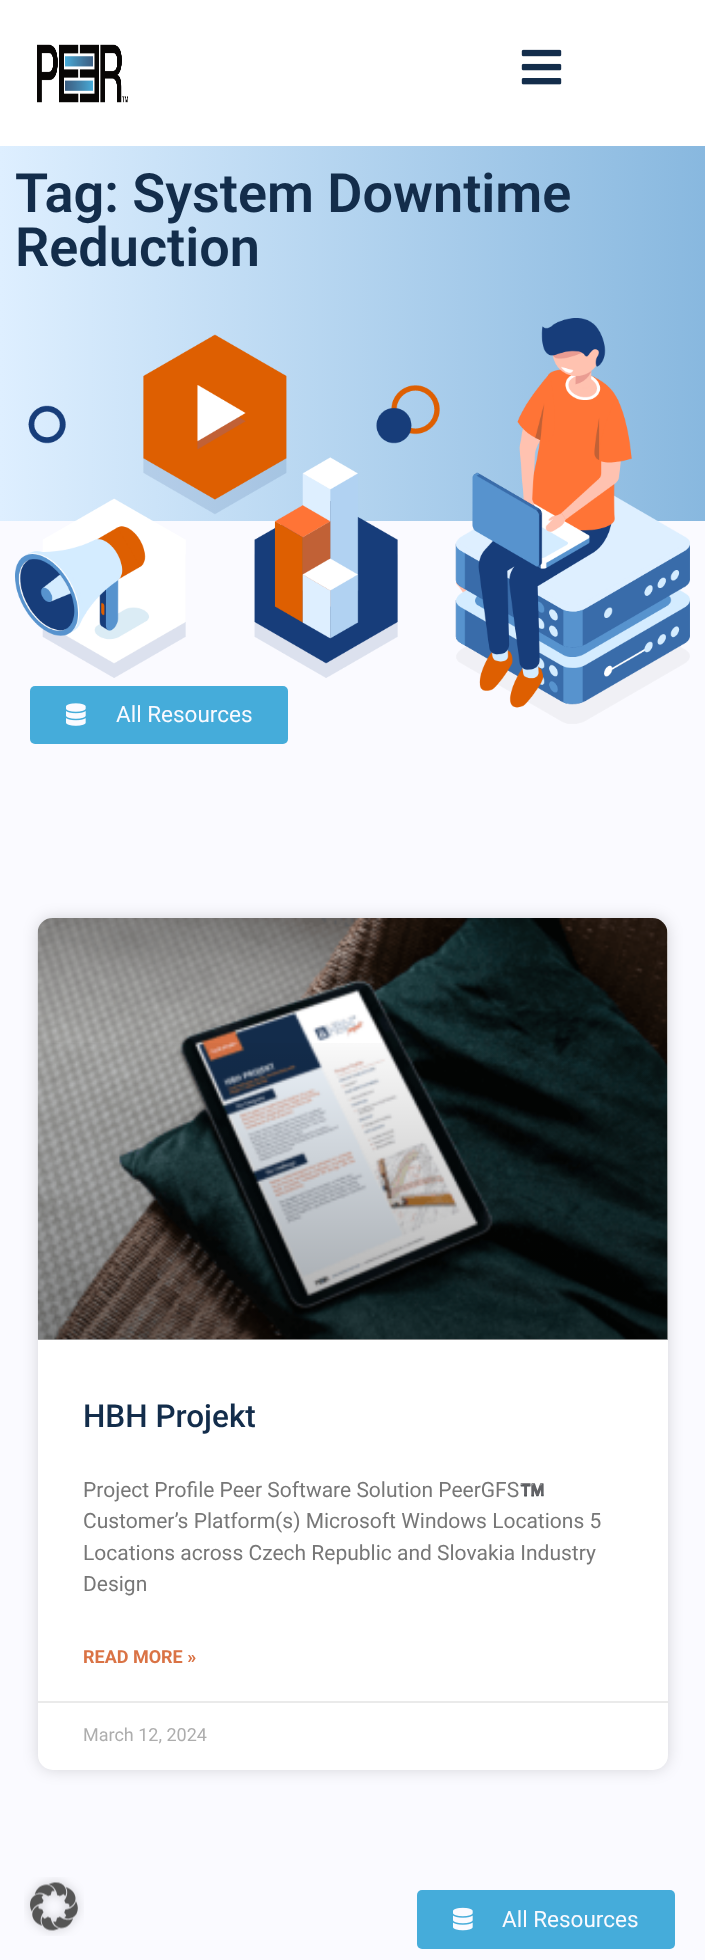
<svg xmlns="http://www.w3.org/2000/svg" width="705" height="1960">
	<defs>
		<linearGradient id="g1" gradientUnits="userSpaceOnUse" x1="0" y1="333" x2="705" y2="333"><stop offset="0" stop-color="#DEEFFF" /><stop offset="1" stop-color="#88B8DF" /></linearGradient>
		<linearGradient id="g2" gradientUnits="userSpaceOnUse" x1="353" y1="1340" x2="353" y2="918"><stop offset="0" stop-color="#000000" stop-opacity="0.35" /><stop offset="0.75" stop-color="#000000" stop-opacity="0" /></linearGradient>
	</defs>
	<rect width="100%" height="100%" fill="#FFFFFF" />
	<image x="37" y="44" width="91" height="59" href="assets/img1.png" />
	<image x="521" y="49" width="41" height="36" href="assets/img2.png" />
	<rect x="0" y="146" width="705" height="375" fill="url(#g1)" />
	<g font-family="Roboto" font-size="54" font-weight="600" fill="#132D4B">
		<text x="15" y="212">Tag: System Downtime</text>
		<text x="15" y="266">Reduction</text>
	</g>
	<rect x="0" y="521" width="705" height="1439" fill="#FAFAFF" />
	<rect x="30" y="686" width="258" height="58" rx="5" fill="#45ACDA" />
	<image x="66" y="703" width="20" height="23" href="assets/img4.png" />
	<text x="116" y="722" font-family="Roboto" font-size="22.5" fill="#FAFAFF">All Resources</text>
	<image x="15" y="318" width="675" height="406" href="assets/img3.png" />
	<rect x="38" y="918" width="630" height="852" rx="15" fill="#000000" fill-opacity="0.15" filter="blur(7.5px)" />
	<rect x="38" y="918" width="630" height="852" rx="15" fill="#FFFFFF" />
	<image x="37" y="918" width="631" height="422" href="assets/img5.png" />
	<rect x="38" y="1043" width="630" height="297" fill="url(#g2)" />
	<text x="83" y="1427" font-family="Roboto" font-size="31.5" font-weight="500" fill="#132D4B">HBH Projekt</text>
	<text x="83" y="1497" font-family="Roboto" font-size="21" fill="#777777">Project Profile Peer Software Solution PeerGFS</text>
	<text x="519" y="1497" font-family="Noto Color Emoji" font-size="21" fill="#777777">™️</text>
	<g font-family="Roboto" font-size="21" fill="#777777">
		<text x="83" y="1528">Customer’s Platform(s) Microsoft Windows Locations 5</text>
		<text x="83" y="1560">Locations across Czech Republic and Slovakia Industry</text>
		<text x="83" y="1591">Design</text>
	</g>
	<text x="83" y="1663" font-family="Roboto" font-size="18" font-weight="700" fill="#DA7345">READ MORE »</text>
	<rect x="38" y="1701" width="630" height="2" fill="#EAEAEA" />
	<text x="83" y="1741" font-family="Roboto" font-size="18" fill="#ADADAD">March 12, 2024</text>
	<rect x="417" y="1890" width="258" height="59" rx="5" fill="#45ACDA" />
	<image x="453" y="1907" width="20" height="24" href="assets/img6.png" />
	<text x="502" y="1927" font-family="Roboto" font-size="22.5" fill="#FAFAFF">All Resources</text>
	<image x="24" y="1877" width="60" height="59" href="assets/img7.png" />
</svg>
